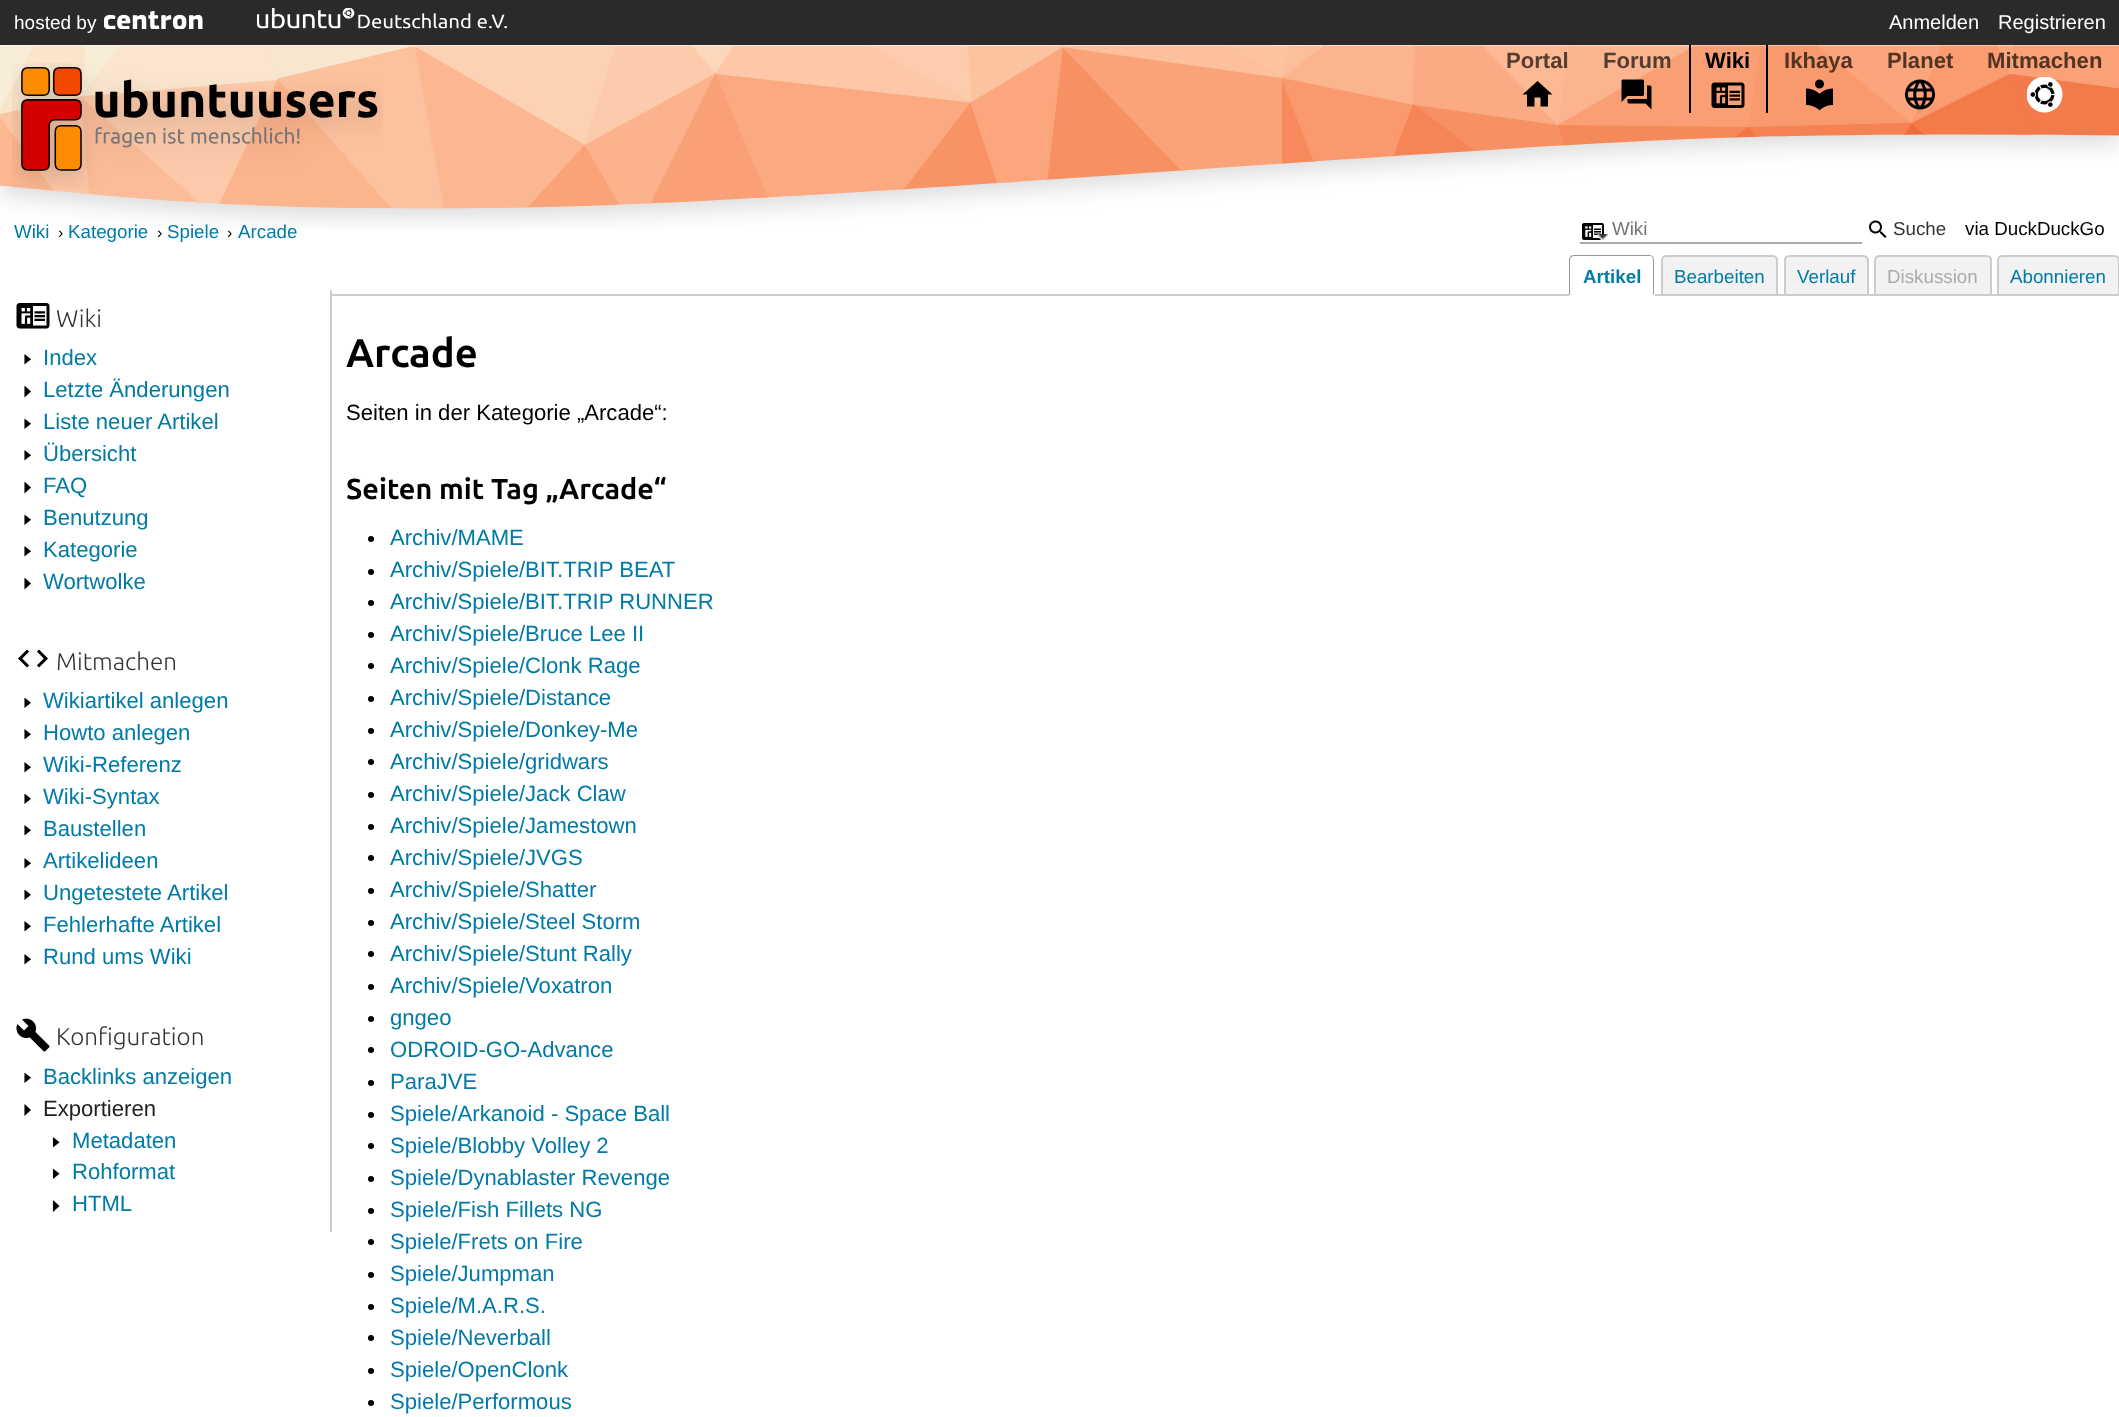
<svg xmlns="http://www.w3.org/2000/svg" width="2119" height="1417">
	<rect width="100%" height="100%" fill="#FFFFFF" />
	<rect x="0" y="0" width="2119" height="45" fill="#2B2929" />
	<text x="14" y="29" font-family="Liberation Sans" font-size="19" fill="#FFFFFF">hosted by</text>
	<image x="104" y="11" width="99" height="18" href="assets/img1.png" />
	<image x="257" y="8" width="250" height="21" href="assets/img2.png" />
	<g font-family="Liberation Sans" font-size="20" fill="#FFFFFF">
		<text x="1889" y="29">Anmelden</text>
		<text x="1998" y="29">Registrieren</text>
	</g>
	<g font-family="Liberation Sans" font-size="18.75" fill="#007AA6">
		<text x="14" y="238">Wiki</text>
		<text x="68" y="238">Kategorie</text>
		<text x="167" y="238">Spiele</text>
		<text x="238" y="238">Arcade</text>
	</g>
	<image x="1582" y="223" width="22" height="17" href="assets/img10.png" />
	<text x="1612" y="235" font-family="Liberation Sans" font-size="18.75" fill="#757575">Wiki</text>
	<text x="1965" y="235" font-family="Liberation Sans" font-size="18.75" fill="#000000">via DuckDuckGo</text>
	<image x="0" y="45" width="2119" height="184" href="assets/img3.png" />
	<image x="12" y="63" width="371" height="126" href="assets/img4.png" />
	<text x="1506" y="68" font-family="Liberation Sans" font-size="22.1" font-weight="700" fill="#533D31">Portal</text>
	<path d="M1534.5 106.5V97.5H1540.5V106.5H1548V94.5H1552.5L1537.5 81L1522.5 94.5H1527V106.5Z" fill="#000000" />
	<text x="1603" y="68" font-family="Liberation Sans" font-size="22.1" font-weight="700" fill="#533D31">Forum</text>
	<image x="1621" y="79" width="31" height="31" href="assets/img5.png" />
	<rect x="1766" y="45" width="2" height="68" fill="#000000" />
	<rect x="1689" y="45" width="2" height="68" fill="#000000" />
	<text x="1705" y="68" font-family="Liberation Sans" font-size="22.1" font-weight="700" fill="#000000">Wiki</text>
	<image x="1711" y="82" width="34" height="26" href="assets/img6.png" />
	<text x="1784" y="68" font-family="Liberation Sans" font-size="22.1" font-weight="700" fill="#523425">Ikhaya</text>
	<image x="1806" y="79" width="27" height="32" href="assets/img7.png" />
	<text x="1887" y="68" font-family="Liberation Sans" font-size="22.1" font-weight="700" fill="#523425">Planet</text>
	<image x="1905" y="79" width="30" height="31" href="assets/img8.png" />
	<text x="1987" y="68" font-family="Liberation Sans" font-size="22.1" font-weight="700" fill="#523425">Mitmachen</text>
	<image x="2027" y="77" width="36" height="36" href="assets/img9.png" />
	<g font-family="Liberation Sans" font-size="16" fill="#000000">
		<text x="58" y="238">›</text>
		<text x="157" y="238">›</text>
		<text x="227" y="238">›</text>
	</g>
	<rect x="1580" y="242" width="282" height="2" fill="#AAAAAA" />
	<image x="1869" y="220" width="18" height="18" href="assets/img11.png" />
	<text x="1893" y="235" font-family="Liberation Sans" font-size="18.75" fill="#333333">Suche</text>
	<image x="1597" y="234" width="11" height="6" href="assets/img12.png" />
	<rect x="332" y="294" width="1665" height="2" fill="#CCCCCC" />
	<path d="M1574 255H1650C1653 255 1655 257 1655 260V296H1569V260C1569 257 1571 255 1574 255Z" fill="#FFFFFF" />
	<path d="M1574 255C1572 255 1571 256 1570 256L1571 257L1574 256H1651L1652 257H1653C1652 256 1651 255 1650 255Z" fill="#999999" />
	<path d="M1653 256.5C1653.5 257.5 1654 258.5 1654 260V295L1653 294V260C1653 259 1653 258 1652 257Z" fill="#999999" />
	<path d="M1654 296H1569L1570 294H1653Z" fill="#FFFFFF" />
	<path d="M1569 295.5L1570.5 294H1570V260C1570 259 1570.5 258 1571 257L1570.5 256.5C1569.5 257 1569 258.5 1569 260Z" fill="#999999" />
	<text x="1583" y="283" font-family="Liberation Sans" font-size="18.75" font-weight="700" fill="#007AA6">Artikel</text>
	<path d="M1666 256H1773C1775 256 1777 258 1777 260V295H1662V260C1662 258 1664 256 1666 256Z" fill="#F2F2F2" stroke="#CCCCCC" stroke-width="2" />
	<text x="1674" y="283" font-family="Liberation Sans" font-size="18.75" fill="#007AA6">Bearbeiten</text>
	<path d="M1789 256H1864C1866 256 1868 258 1868 260V295H1785V260C1785 258 1787 256 1789 256Z" fill="#F2F2F2" stroke="#CCCCCC" stroke-width="2" />
	<text x="1797" y="283" font-family="Liberation Sans" font-size="18.75" fill="#007AA6">Verlauf</text>
	<path d="M1879 256H1987C1989 256 1991 258 1991 260V295H1875V260C1875 258 1877 256 1879 256Z" fill="#F2F2F2" stroke="#CCCCCC" stroke-width="2" />
	<text x="1887" y="283" font-family="Liberation Sans" font-size="18.75" fill="#AAAAAA">Diskussion</text>
	<path d="M2002 256H2115C2117 256 2119 258 2119 260V295H1998V260C1998 258 2000 256 2002 256Z" fill="#F2F2F2" stroke="#CCCCCC" stroke-width="2" />
	<text x="2010" y="283" font-family="Liberation Sans" font-size="18.75" fill="#007AA6">Abonnieren</text>
	<rect x="330" y="290" width="2" height="942" fill="#CCCCCC" />
	<image x="16" y="303" width="34" height="26" href="assets/img13.png" />
	<text x="56" y="327" font-family="Ubuntu" font-size="24.25" font-weight="300" fill="#333333">Wiki</text>
	<image x="24" y="354" width="7" height="11" href="assets/img14.png" />
	<text x="43" y="365" font-family="Liberation Sans" font-size="22.1" fill="#007AA6">Index</text>
	<image x="24" y="386" width="7" height="12" href="assets/img15.png" />
	<text x="43" y="397" font-family="Liberation Sans" font-size="22.1" fill="#007AA6">Letzte Änderungen</text>
	<image x="24" y="419" width="7" height="10" href="assets/img16.png" />
	<text x="43" y="429" font-family="Liberation Sans" font-size="22.1" fill="#007AA6">Liste neuer Artikel</text>
	<image x="24" y="450" width="7" height="11" href="assets/img14.png" />
	<text x="43" y="461" font-family="Liberation Sans" font-size="22.1" fill="#007AA6">Übersicht</text>
	<image x="24" y="482" width="7" height="12" href="assets/img15.png" />
	<text x="43" y="493" font-family="Liberation Sans" font-size="22.1" fill="#007AA6">FAQ</text>
	<image x="24" y="515" width="7" height="10" href="assets/img16.png" />
	<text x="43" y="525" font-family="Liberation Sans" font-size="22.1" fill="#007AA6">Benutzung</text>
	<image x="24" y="546" width="7" height="11" href="assets/img14.png" />
	<text x="43" y="557" font-family="Liberation Sans" font-size="22.1" fill="#007AA6">Kategorie</text>
	<image x="24" y="578" width="7" height="12" href="assets/img15.png" />
	<text x="43" y="589" font-family="Liberation Sans" font-size="22.1" fill="#007AA6">Wortwolke</text>
	<image x="18" y="649" width="30" height="19" href="assets/img17.png" />
	<text x="56" y="670" font-family="Ubuntu" font-size="24.25" font-weight="300" fill="#333333">Mitmachen</text>
	<image x="24" y="698" width="7" height="10" href="assets/img16.png" />
	<text x="43" y="708" font-family="Liberation Sans" font-size="22.1" fill="#007AA6">Wikiartikel anlegen</text>
	<image x="24" y="729" width="7" height="11" href="assets/img14.png" />
	<text x="43" y="740" font-family="Liberation Sans" font-size="22.1" fill="#007AA6">Howto anlegen</text>
	<image x="24" y="762" width="7" height="11" href="assets/img18.png" />
	<text x="43" y="772" font-family="Liberation Sans" font-size="22.1" fill="#007AA6">Wiki-Referenz</text>
	<image x="24" y="794" width="7" height="10" href="assets/img16.png" />
	<text x="43" y="804" font-family="Liberation Sans" font-size="22.1" fill="#007AA6">Wiki-Syntax</text>
	<image x="24" y="825" width="7" height="11" href="assets/img14.png" />
	<text x="43" y="836" font-family="Liberation Sans" font-size="22.1" fill="#007AA6">Baustellen</text>
	<image x="24" y="858" width="7" height="11" href="assets/img14.png" />
	<text x="43" y="868" font-family="Liberation Sans" font-size="22.1" fill="#007AA6">Artikelideen</text>
	<image x="24" y="890" width="7" height="10" href="assets/img16.png" />
	<text x="43" y="900" font-family="Liberation Sans" font-size="22.1" fill="#007AA6">Ungetestete Artikel</text>
	<image x="24" y="921" width="7" height="11" href="assets/img14.png" />
	<text x="43" y="932" font-family="Liberation Sans" font-size="22.1" fill="#007AA6">Fehlerhafte Artikel</text>
	<image x="24" y="954" width="7" height="11" href="assets/img14.png" />
	<text x="43" y="964" font-family="Liberation Sans" font-size="22.1" fill="#007AA6">Rund ums Wiki</text>
	<image x="16" y="1018" width="34" height="34" href="assets/img19.png" />
	<text x="56" y="1045" font-family="Ubuntu" font-size="24.25" font-weight="300" fill="#333333">Konfiguration</text>
	<image x="24" y="1073" width="7" height="10" href="assets/img16.png" />
	<text x="43" y="1084" font-family="Liberation Sans" font-size="22.1" fill="#007AA6">Backlinks anzeigen</text>
	<image x="24" y="1104" width="7" height="12" href="assets/img20.png" />
	<text x="43" y="1116" font-family="Liberation Sans" font-size="22.1" fill="#222222">Exportieren</text>
	<image x="52" y="1137" width="8" height="11" href="assets/img21.png" />
	<text x="72" y="1148" font-family="Liberation Sans" font-size="22.1" fill="#007AA6">Metadaten</text>
	<image x="52" y="1169" width="8" height="10" href="assets/img22.png" />
	<text x="72" y="1179" font-family="Liberation Sans" font-size="22.1" fill="#007AA6">Rohformat</text>
	<image x="52" y="1200" width="8" height="12" href="assets/img23.png" />
	<text x="72" y="1211" font-family="Liberation Sans" font-size="22.1" fill="#007AA6">HTML</text>
	<text x="346" y="367" font-family="Ubuntu" font-size="40" font-weight="700" fill="#000000">Arcade</text>
	<text x="346" y="420" font-family="Liberation Sans" font-size="22.1" fill="#000000">Seiten in der Kategorie „Arcade“:</text>
	<text x="346" y="499" font-family="Ubuntu" font-size="28.75" font-weight="700" fill="#000000">Seiten mit Tag „Arcade“</text>
	<circle cx="371" cy="539" r="3" fill="#000000" />
	<text x="390" y="545" font-family="Liberation Sans" font-size="22.1" fill="#007AA6">Archiv/MAME</text>
	<circle cx="371" cy="572" r="3" fill="#000000" />
	<text x="390" y="577" font-family="Liberation Sans" font-size="22.1" fill="#007AA6">Archiv/Spiele/BIT.TRIP BEAT</text>
	<circle cx="371" cy="603" r="3" fill="#000000" />
	<text x="390" y="609" font-family="Liberation Sans" font-size="22.1" fill="#007AA6">Archiv/Spiele/BIT.TRIP RUNNER</text>
	<circle cx="371" cy="635" r="3" fill="#000000" />
	<text x="390" y="641" font-family="Liberation Sans" font-size="22.1" fill="#007AA6">Archiv/Spiele/Bruce Lee II</text>
	<circle cx="371" cy="666" r="3" fill="#000000" />
	<text x="390" y="673" font-family="Liberation Sans" font-size="22.1" fill="#007AA6">Archiv/Spiele/Clonk Rage</text>
	<circle cx="371" cy="699" r="3" fill="#000000" />
	<text x="390" y="705" font-family="Liberation Sans" font-size="22.1" fill="#007AA6">Archiv/Spiele/Distance</text>
	<circle cx="371" cy="731" r="3" fill="#000000" />
	<text x="390" y="737" font-family="Liberation Sans" font-size="22.1" fill="#007AA6">Archiv/Spiele/Donkey-Me</text>
	<circle cx="371" cy="762" r="3" fill="#000000" />
	<text x="390" y="769" font-family="Liberation Sans" font-size="22.1" fill="#007AA6">Archiv/Spiele/gridwars</text>
	<circle cx="371" cy="795" r="3" fill="#000000" />
	<text x="390" y="801" font-family="Liberation Sans" font-size="22.1" fill="#007AA6">Archiv/Spiele/Jack Claw</text>
	<circle cx="371" cy="827" r="3" fill="#000000" />
	<text x="390" y="833" font-family="Liberation Sans" font-size="22.1" fill="#007AA6">Archiv/Spiele/Jamestown</text>
	<circle cx="371" cy="858" r="3" fill="#000000" />
	<text x="390" y="865" font-family="Liberation Sans" font-size="22.1" fill="#007AA6">Archiv/Spiele/JVGS</text>
	<circle cx="371" cy="891" r="3" fill="#000000" />
	<text x="390" y="897" font-family="Liberation Sans" font-size="22.1" fill="#007AA6">Archiv/Spiele/Shatter</text>
	<circle cx="371" cy="923" r="3" fill="#000000" />
	<text x="390" y="929" font-family="Liberation Sans" font-size="22.1" fill="#007AA6">Archiv/Spiele/Steel Storm</text>
	<circle cx="371" cy="954" r="3" fill="#000000" />
	<text x="390" y="961" font-family="Liberation Sans" font-size="22.1" fill="#007AA6">Archiv/Spiele/Stunt Rally</text>
	<circle cx="371" cy="987" r="3" fill="#000000" />
	<text x="390" y="993" font-family="Liberation Sans" font-size="22.1" fill="#007AA6">Archiv/Spiele/Voxatron</text>
	<circle cx="371" cy="1019" r="3" fill="#000000" />
	<text x="390" y="1025" font-family="Liberation Sans" font-size="22.1" fill="#007AA6">gngeo</text>
	<circle cx="371" cy="1050" r="3" fill="#000000" />
	<text x="390" y="1057" font-family="Liberation Sans" font-size="22.1" fill="#007AA6">ODROID-GO-Advance</text>
	<circle cx="371" cy="1083" r="3" fill="#000000" />
	<text x="390" y="1089" font-family="Liberation Sans" font-size="22.1" fill="#007AA6">ParaJVE</text>
	<circle cx="371" cy="1115" r="3" fill="#000000" />
	<text x="390" y="1121" font-family="Liberation Sans" font-size="22.1" fill="#007AA6">Spiele/Arkanoid - Space Ball</text>
	<circle cx="371" cy="1146" r="3" fill="#000000" />
	<text x="390" y="1153" font-family="Liberation Sans" font-size="22.1" fill="#007AA6">Spiele/Blobby Volley 2</text>
	<circle cx="371" cy="1179" r="3" fill="#000000" />
	<text x="390" y="1185" font-family="Liberation Sans" font-size="22.1" fill="#007AA6">Spiele/Dynablaster Revenge</text>
	<circle cx="371" cy="1211" r="3" fill="#000000" />
	<text x="390" y="1217" font-family="Liberation Sans" font-size="22.1" fill="#007AA6">Spiele/Fish Fillets NG</text>
	<circle cx="371" cy="1242" r="3" fill="#000000" />
	<text x="390" y="1249" font-family="Liberation Sans" font-size="22.1" fill="#007AA6">Spiele/Frets on Fire</text>
	<circle cx="371" cy="1275" r="3" fill="#000000" />
	<text x="390" y="1281" font-family="Liberation Sans" font-size="22.1" fill="#007AA6">Spiele/Jumpman</text>
	<circle cx="371" cy="1307" r="3" fill="#000000" />
	<text x="390" y="1313" font-family="Liberation Sans" font-size="22.1" fill="#007AA6">Spiele/M.A.R.S.</text>
	<circle cx="371" cy="1338" r="3" fill="#000000" />
	<text x="390" y="1345" font-family="Liberation Sans" font-size="22.1" fill="#007AA6">Spiele/Neverball</text>
	<circle cx="371" cy="1371" r="3" fill="#000000" />
	<text x="390" y="1377" font-family="Liberation Sans" font-size="22.1" fill="#007AA6">Spiele/OpenClonk</text>
	<circle cx="371" cy="1403" r="3" fill="#000000" />
	<text x="390" y="1409" font-family="Liberation Sans" font-size="22.1" fill="#007AA6">Spiele/Performous</text>
</svg>
